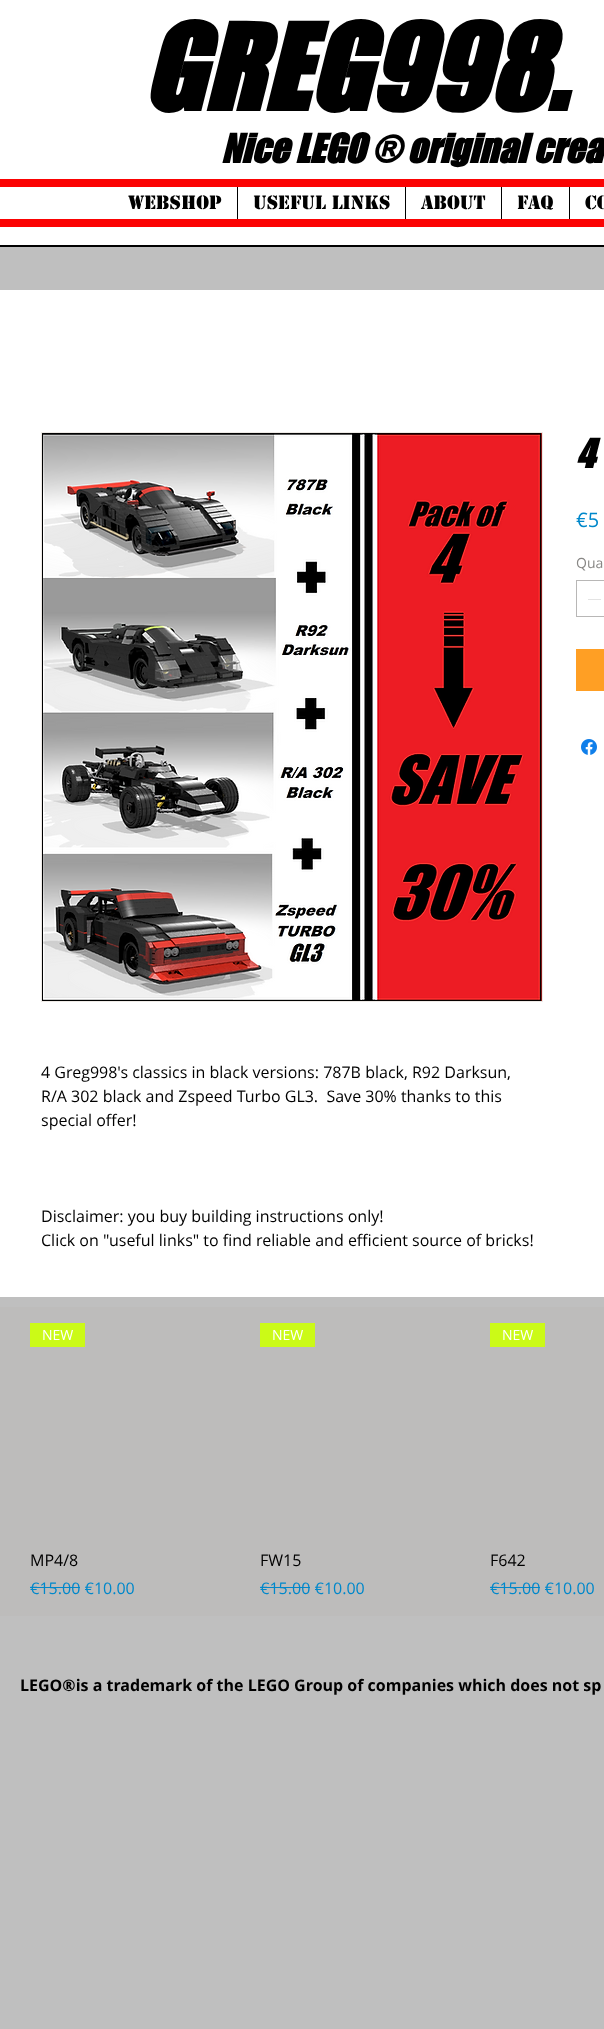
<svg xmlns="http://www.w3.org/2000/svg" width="604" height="2029">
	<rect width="100%" height="100%" fill="#BFBFBF" />
	<rect x="0" y="0" width="604" height="245" fill="#FFFFFF" />
	<rect x="0" y="245" width="604" height="2" fill="#000000" />
	<text x="142" y="111" font-family="'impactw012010'" font-size="110" font-weight="700" font-style="italic" fill="#000000">GREG998.</text>
	<text x="221" y="163" font-family="'impactw012010'" font-size="37" font-weight="700" font-style="italic" fill="#000000">Nice LEGO ® original crea</text>
	<rect x="0" y="179" width="604" height="8" fill="#FB0303" />
	<text x="128" y="209" font-family="'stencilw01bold'" font-size="18" font-weight="700" fill="#000000">Webshop</text>
	<rect x="237" y="187" width="1" height="32" fill="#000000" />
	<text x="253" y="209" font-family="'stencilw01bold'" font-size="18" font-weight="700" fill="#000000">USEFUL LINKS</text>
	<rect x="405" y="187" width="1" height="32" fill="#000000" />
	<text x="421" y="209" font-family="'stencilw01bold'" font-size="18" font-weight="700" fill="#000000">About</text>
	<rect x="501" y="187" width="1" height="32" fill="#000000" />
	<text x="517" y="209" font-family="'stencilw01bold'" font-size="18" font-weight="700" fill="#000000">FAQ</text>
	<rect x="569" y="187" width="1" height="32" fill="#000000" />
	<text x="585" y="209" font-family="'stencilw01bold'" font-size="18" font-weight="700" fill="#000000">Co</text>
	<rect x="0" y="219" width="604" height="8" fill="#FB0303" />
	<rect x="0" y="290" width="604" height="1007" fill="#FFFFFF" />
	<text x="576" y="468" font-family="'impactw012010'" font-size="37" font-weight="700" font-style="italic" fill="#000000">4</text>
	<text x="576" y="527" font-family="Open Sans" font-size="20" fill="#0088CB">€5</text>
	<text x="576" y="568" font-family="Open Sans" font-size="14" fill="#888785">Qua</text>
	<rect x="576.5" y="580.5" width="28" height="36" fill="none" stroke="#B8B7B6" />
	<rect x="588" y="599" width="13" height="1" fill="#E3E3E3" />
	<rect x="576" y="649" width="28" height="42" fill="#FF9F24" />
	<image x="581" y="739" width="16" height="16" href="assets/img1.png" />
	<rect x="41.5" y="432.5" width="501" height="569" fill="none" stroke="#EEEAE6" />
	<image x="42" y="433" width="500" height="568" href="assets/img2.png" />
	<g font-family="Open Sans" font-size="16" fill="#000000">
		<text x="41" y="1078">4 Greg998's classics in black versions: 787B black, R92 Darksun,</text>
		<text x="41" y="1102" xml:space="preserve">R/A 302 black and Zspeed Turbo GL3.  Save 30% thanks to this</text>
		<text x="41" y="1126">special offer!</text>
		<text x="41" y="1222">Disclaimer: you buy building instructions only!</text>
		<text x="41" y="1246">Click on "useful links" to find reliable and efficient source of bricks!</text>
	</g>
	<rect x="0" y="1307" width="604" height="309" fill="#BDBCBB" />
	<rect x="30" y="1323" width="55" height="24" fill="#CBFA17" />
	<text x="42" y="1340" font-family="Open Sans" font-size="14" fill="#FFFFFF">NEW</text>
	<text x="30" y="1566" font-family="Open Sans" font-size="16" fill="#000000">MP4/8</text>
	<text x="30" y="1594" font-family="Open Sans" font-size="16" fill="#0088CB">€15.00 €10.00</text>
	<rect x="30" y="1587" width="50" height="1" fill="#0088CB" />
	<rect x="260" y="1323" width="55" height="24" fill="#CBFA17" />
	<text x="272" y="1340" font-family="Open Sans" font-size="14" fill="#FFFFFF">NEW</text>
	<text x="260" y="1566" font-family="Open Sans" font-size="16" fill="#000000">FW15</text>
	<text x="260" y="1594" font-family="Open Sans" font-size="16" fill="#0088CB">€15.00 €10.00</text>
	<rect x="260" y="1587" width="50" height="1" fill="#0088CB" />
	<rect x="490" y="1323" width="55" height="24" fill="#CBFA17" />
	<text x="502" y="1340" font-family="Open Sans" font-size="14" fill="#FFFFFF">NEW</text>
	<text x="490" y="1566" font-family="Open Sans" font-size="16" fill="#000000">F642</text>
	<text x="490" y="1594" font-family="Open Sans" font-size="16" fill="#0088CB">€15.00 €10.00</text>
	<rect x="490" y="1587" width="50" height="1" fill="#0088CB" />
	<text x="20" y="1691" font-family="Open Sans" font-size="16" font-weight="700" fill="#000000">LEGO®is a trademark of the LEGO Group of companies which does not sp</text>
</svg>
